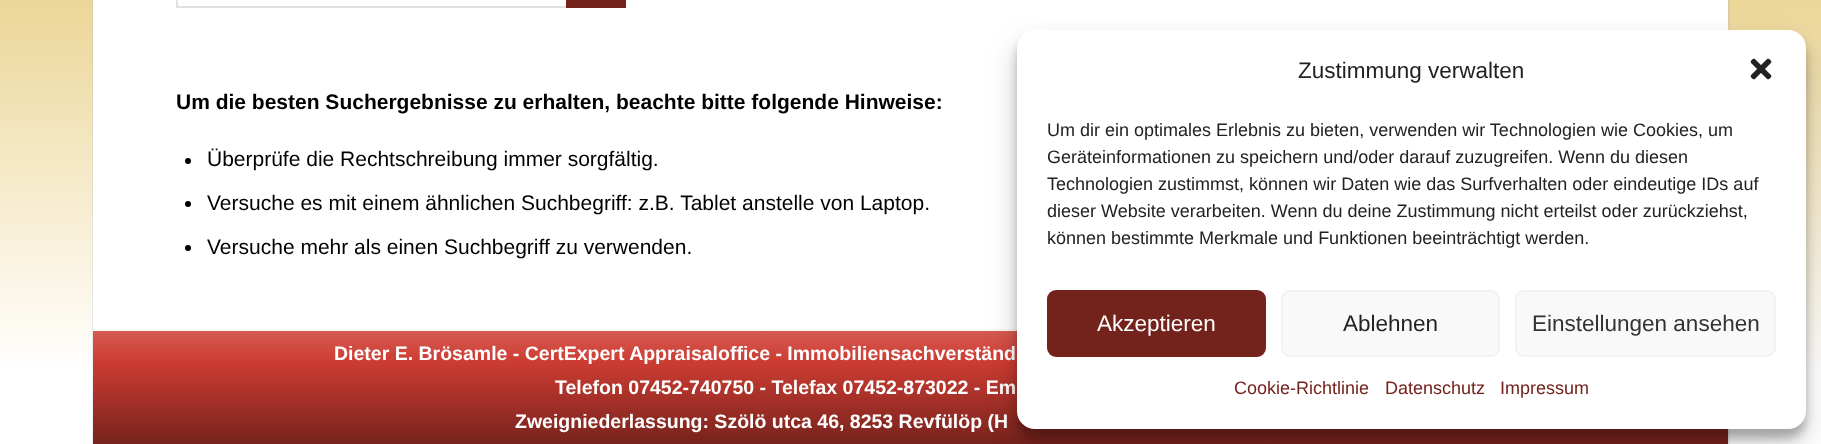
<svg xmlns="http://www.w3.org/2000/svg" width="1821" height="444">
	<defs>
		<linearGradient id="g1" gradientUnits="userSpaceOnUse" x1="911" y1="0" x2="911" y2="444"><stop offset="0" stop-color="#ECD698" /><stop offset="0.84" stop-color="#FFFFFF" /></linearGradient>
		<linearGradient id="g2" gradientUnits="userSpaceOnUse" x1="911" y1="330" x2="911" y2="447"><stop offset="0" stop-color="#D55B53" /><stop offset="0.27" stop-color="#CD3C32" /><stop offset="1" stop-color="#73221C" /></linearGradient>
	</defs>
	<rect width="100%" height="100%" fill="#FFFFFF" />
	<rect x="0" y="0" width="1821" height="364" fill="url(#g1)" />
	<rect x="93" y="-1" width="1636" height="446" fill="none" stroke="#9CAFC4" stroke-opacity="0.2" stroke-width="2" />
	<rect x="93" y="0" width="1635" height="329" fill="#FFFFFF" />
	<rect x="177" y="-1" width="448" height="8" fill="none" stroke="#E1E1E1" stroke-width="2" />
	<rect x="566" y="0" width="60" height="8" fill="#73221C" />
	<text x="176" y="109" font-family="Liberation Sans" font-size="21" font-weight="700" fill="#000000">Um die besten Suchergebnisse zu erhalten, beachte bitte folgende Hinweise:</text>
	<circle cx="188" cy="161" r="3" fill="#000000" />
	<text x="207" y="166" font-family="Liberation Sans" font-size="21" fill="#000000">Überprüfe die Rechtschreibung immer sorgfältig.</text>
	<circle cx="188" cy="204" r="3" fill="#000000" />
	<text x="207" y="210" font-family="Liberation Sans" font-size="21" fill="#000000">Versuche es mit einem ähnlichen Suchbegriff: z.B. Tablet anstelle von Laptop.</text>
	<circle cx="188" cy="248" r="3" fill="#000000" />
	<text x="207" y="254" font-family="Liberation Sans" font-size="21" fill="#000000">Versuche mehr als einen Suchbegriff zu verwenden.</text>
	<rect x="93" y="331" width="1635" height="113" fill="url(#g2)" />
	<rect x="93" y="329" width="924" height="2" fill="#FBF7EB" />
	<g font-family="Liberation Sans" font-size="19.5" font-weight="700" fill="#FFFFFF">
		<text x="334" y="360">Dieter E. Brösamle - CertExpert Appraisaloffice - Immobiliensachverständ</text>
		<text x="555" y="394">Telefon 07452-740750 - Telefax 07452-873022 - Em</text>
		<text x="515" y="428">Zweigniederlassung: Szölö utca 46, 8253 Revfülöp (H</text>
	</g>
	<rect x="1017" y="39" width="789" height="399" rx="18" fill="#000000" fill-opacity="0.23" filter="blur(4.5px)" />
	<rect x="1017" y="45" width="789" height="399" rx="18" fill="#000000" fill-opacity="0.19" filter="blur(15px)" />
	<rect x="1017" y="30" width="789" height="399" rx="18" fill="#FFFFFF" />
	<text x="1298" y="78" font-family="Liberation Sans" font-size="22.5" fill="#222222">Zustimmung verwalten</text>
	<image x="1750" y="58" width="22" height="22" href="assets/img1.png" />
	<g font-family="Liberation Sans" font-size="18" fill="#222222">
		<text x="1047" y="136">Um dir ein optimales Erlebnis zu bieten, verwenden wir Technologien wie Cookies, um</text>
		<text x="1047" y="163">Geräteinformationen zu speichern und/oder darauf zuzugreifen. Wenn du diesen</text>
		<text x="1047" y="190">Technologien zustimmst, können wir Daten wie das Surfverhalten oder eindeutige IDs auf</text>
		<text x="1047" y="217">dieser Website verarbeiten. Wenn du deine Zustimmung nicht erteilst oder zurückziehst,</text>
		<text x="1047" y="244">können bestimmte Merkmale und Funktionen beeinträchtigt werden.</text>
	</g>
	<rect x="1048" y="291" width="217" height="65" rx="8" fill="#73221C" stroke="#73221C" stroke-width="2" />
	<text x="1097" y="331" font-family="Liberation Sans" font-size="22.5" fill="#FFFFFF">Akzeptieren</text>
	<rect x="1282" y="291" width="217" height="65" rx="8" fill="#F9F9F9" stroke="#F2F2F2" stroke-width="2" />
	<text x="1343" y="331" font-family="Liberation Sans" font-size="22.5" fill="#222222">Ablehnen</text>
	<rect x="1516" y="291" width="259" height="65" rx="8" fill="#F9F9F9" stroke="#F2F2F2" stroke-width="2" />
	<text x="1532" y="331" font-family="Liberation Sans" font-size="22.5" fill="#333333">Einstellungen ansehen</text>
	<g font-family="Liberation Sans" font-size="18" fill="#73221C">
		<text x="1234" y="394">Cookie-Richtlinie</text>
		<text x="1385" y="394">Datenschutz</text>
		<text x="1500" y="394">Impressum</text>
	</g>
</svg>
